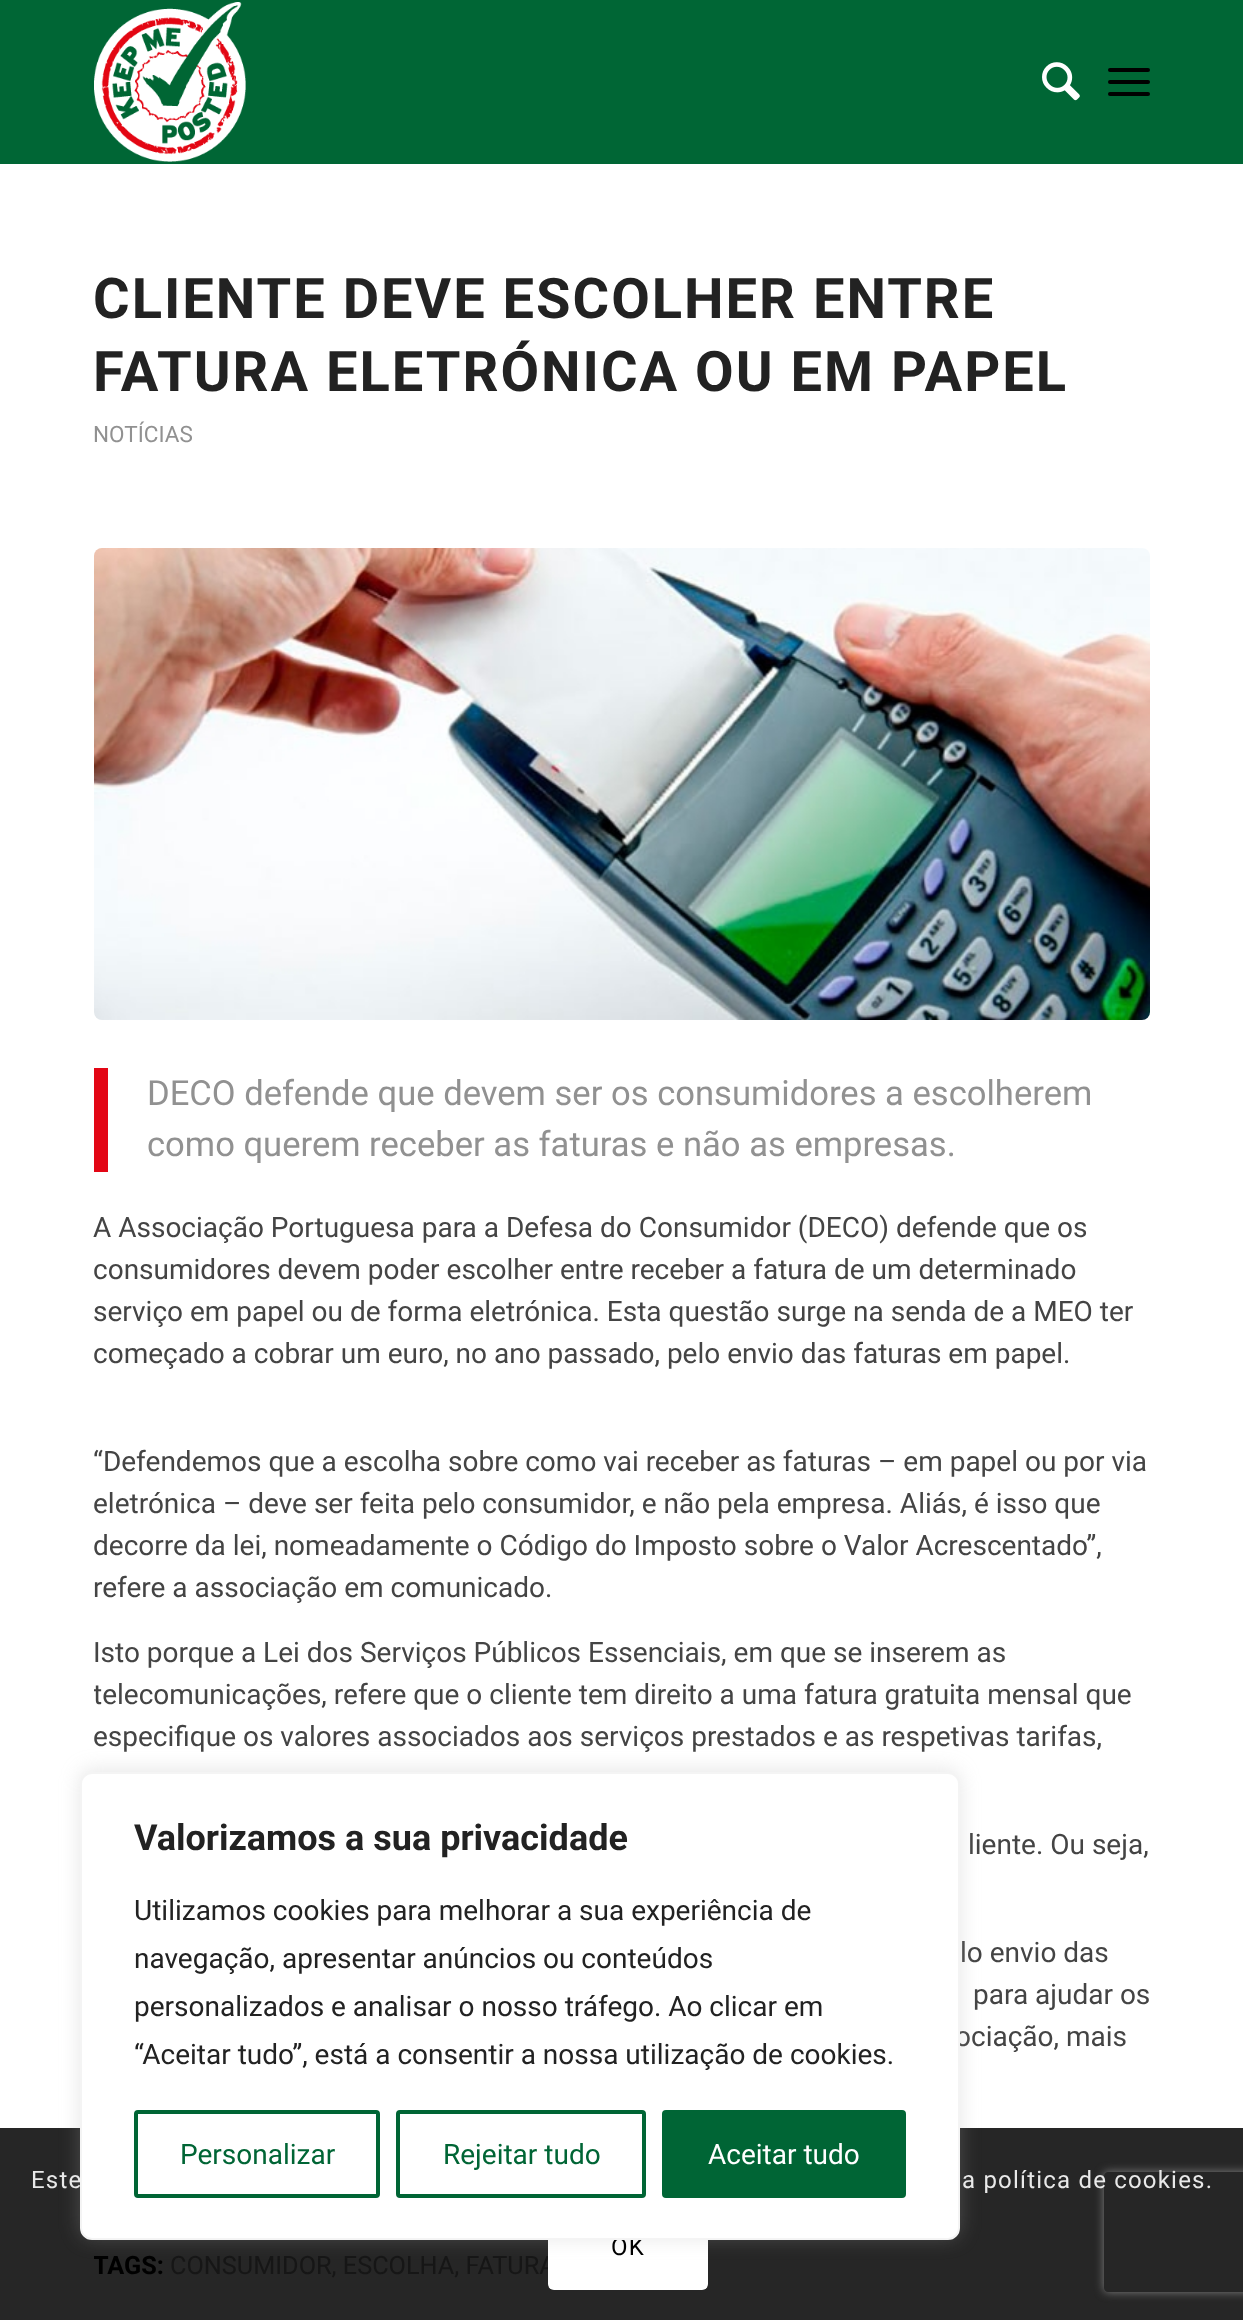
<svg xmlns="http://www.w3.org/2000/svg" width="1243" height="2320">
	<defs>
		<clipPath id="clip1"><rect x="94" y="264" width="1056" height="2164" /></clipPath>
		<clipPath id="clip2"><path d="M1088 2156H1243V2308H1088ZM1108 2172H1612C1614 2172 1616 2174 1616 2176V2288C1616 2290 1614 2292 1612 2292H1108C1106 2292 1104 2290 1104 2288V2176C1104 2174 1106 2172 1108 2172Z" clip-rule="evenodd" /></clipPath>
	</defs>
	<rect width="100%" height="100%" fill="#FFFFFF" />
	<rect x="0" y="0" width="1243" height="164" fill="#006635" />
	<image x="94" y="2" width="152" height="160" href="assets/img1.png" />
	<image x="1042" y="62" width="38" height="39" href="assets/img2.png" />
	<rect x="1108" y="80" width="42" height="4" rx="2" fill="#000000" />
	<rect x="1108" y="68" width="42" height="4" rx="2" fill="#000000" />
	<rect x="1108" y="92" width="42" height="4" rx="2" fill="#000000" />
	<rect x="0" y="2128" width="1243" height="192" fill="#262626" />
	<g font-family="Roboto" font-size="56" font-weight="700" letter-spacing="2" fill="#222222">
		<text x="93" y="318">CLIENTE DEVE ESCOLHER ENTRE</text>
		<text x="93" y="391">FATURA ELETRÓNICA OU EM PAPEL</text>
	</g>
	<text x="93" y="442" font-family="Roboto" font-size="22.5" fill="#919191">NOTÍCIAS</text>
	<image x="94" y="548" width="1056" height="472" href="assets/img3.png" />
	<rect x="94" y="1068" width="14" height="104" fill="#E30615" />
	<g font-family="Roboto" font-size="34.6" fill="#919191">
		<text x="147" y="1105">DECO defende que devem ser os consumidores a escolherem</text>
		<text x="147" y="1156">como querem receber as faturas e não as empresas.</text>
	</g>
	<g font-family="Roboto" font-size="28" fill="#444444">
		<text x="93" y="1237">A Associação Portuguesa para a Defesa do Consumidor (DECO) defende que os</text>
		<text x="93" y="1279">consumidores devem poder escolher entre receber a fatura de um determinado</text>
		<text x="93" y="1321">serviço em papel ou de forma eletrónica. Esta questão surge na senda de a MEO ter</text>
		<text x="93" y="1363">começado a cobrar um euro, no ano passado, pelo envio das faturas em papel.</text>
		<text x="93" y="1471">“Defendemos que a escolha sobre como vai receber as faturas – em papel ou por via</text>
		<text x="93" y="1513">eletrónica – deve ser feita pelo consumidor, e não pela empresa. Aliás, é isso que</text>
		<text x="93" y="1555">decorre da lei, nomeadamente o Código do Imposto sobre o Valor Acrescentado”,</text>
		<text x="93" y="1597">refere a associação em comunicado.</text>
		<text x="93" y="1662">Isto porque a Lei dos Serviços Públicos Essenciais, em que se inserem as</text>
	</g>
	<g clip-path="url(#clip1)">
		<text x="93" y="1704" font-family="Roboto" font-size="28" fill="#444444">telecomunicações, refere que o cliente tem direito a uma fatura gratuita mensal que</text>
	</g>
	<g font-family="Roboto" font-size="28" fill="#444444">
		<text x="93" y="1746">especifique os valores associados aos serviços prestados e as respetivas tarifas,</text>
		<text x="968" y="1854">liente. Ou seja,</text>
		<text x="960" y="1962">lo envio das</text>
		<text x="973" y="2004">para ajudar os</text>
		<text x="955" y="2046">ociação, mais</text>
	</g>
	<g clip-path="url(#clip1)">
		<text x="93" y="2274" font-family="Roboto" font-size="25.25" font-weight="700" fill="#000000">TAGS:</text>
	</g>
	<text x="170" y="2274" font-family="Roboto" font-size="25.25" fill="#161616">CONSUMIDOR, ESCOLHA, FATURA</text>
	<rect x="548" y="2204" width="160" height="86" rx="6" fill="#FFFFFF" />
	<rect x="80" y="1770" width="880" height="468" rx="12" fill="#ACABAB" fill-opacity="0.3" filter="blur(10px)" />
	<text x="31" y="2188" font-family="Roboto" font-size="24" letter-spacing="1.2" fill="#E9E9E9">Este</text>
	<text x="611" y="2255" font-family="Roboto" font-size="24" letter-spacing="1.2" fill="#000000">OK</text>
	<rect x="81" y="1773" width="878" height="466" rx="11" fill="#FFFFFF" stroke="#F4F4F4" stroke-width="2" />
	<text x="134" y="1850" font-family="Roboto" font-size="36" font-weight="700" fill="#222222">Valorizamos a sua privacidade</text>
	<g font-family="Roboto" font-size="28" fill="#222222">
		<text x="134" y="1920">Utilizamos cookies para melhorar a sua experiência de</text>
		<text x="134" y="1968">navegação, apresentar anúncios ou conteúdos</text>
		<text x="134" y="2016">personalizados e analisar o nosso tráfego. Ao clicar em</text>
		<text x="134" y="2064">“Aceitar tudo”, está a consentir a nossa utilização de cookies.</text>
	</g>
	<rect x="136" y="2112" width="242" height="84" rx="2" fill="none" stroke="#006535" stroke-width="4" />
	<text x="180" y="2164" font-family="Roboto" font-size="28" fill="#006535">Personalizar</text>
	<rect x="398" y="2112" width="246" height="84" rx="2" fill="none" stroke="#006535" stroke-width="4" />
	<text x="443" y="2164" font-family="Roboto" font-size="28" fill="#006535">Rejeitar tudo</text>
	<rect x="664" y="2112" width="240" height="84" rx="2" fill="#006535" stroke="#006535" stroke-width="4" />
	<text x="708" y="2164" font-family="Roboto" font-size="28" fill="#FFFFFF">Aceitar tudo</text>
	<g clip-path="url(#clip2)">
		<rect x="1104" y="2172" width="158" height="120" rx="4" fill="#808080" filter="blur(5px)" />
	</g>
	<text x="962" y="2188" font-family="Roboto" font-size="24" letter-spacing="1.2" fill="#E9E9E9">a política de cookies.</text>
</svg>
